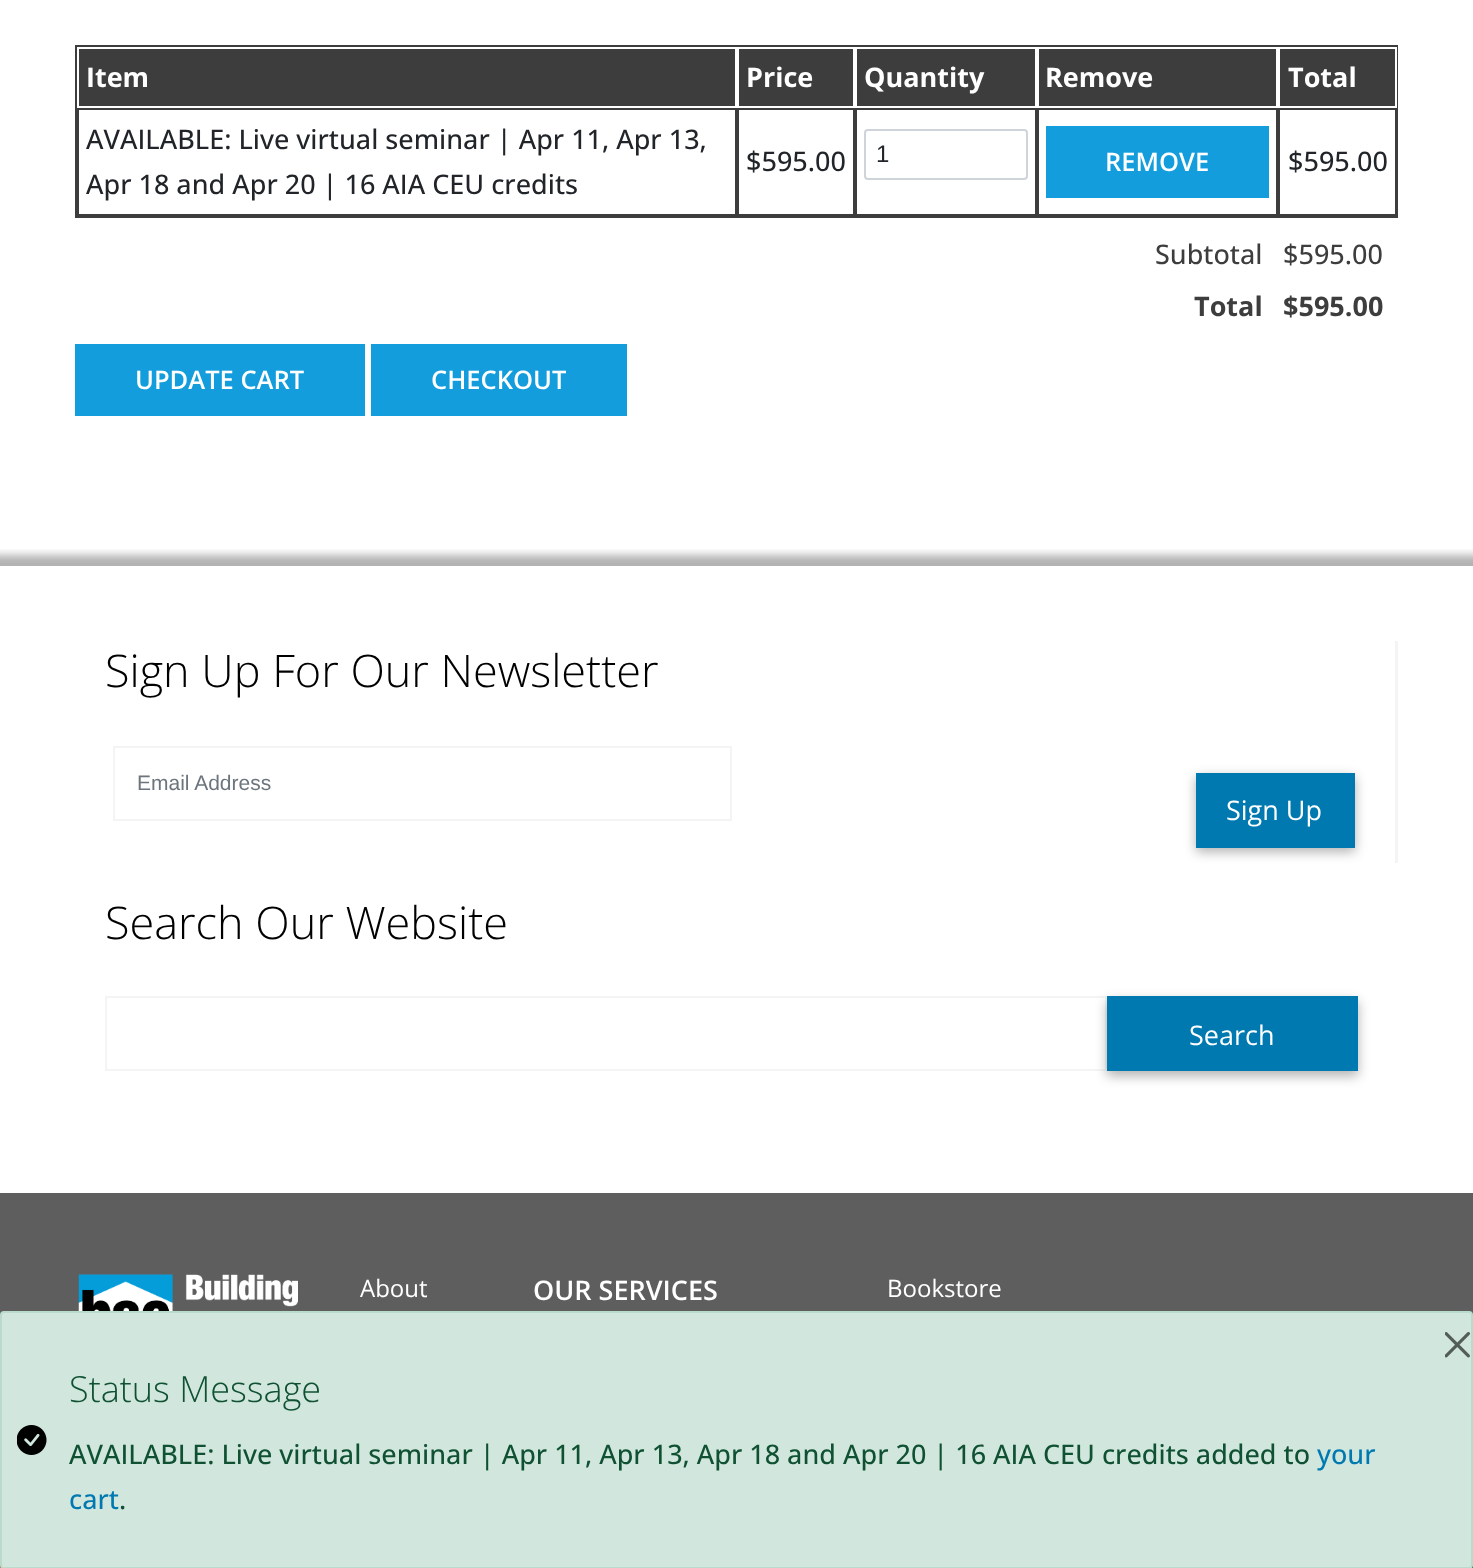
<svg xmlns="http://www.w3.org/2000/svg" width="1473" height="1568">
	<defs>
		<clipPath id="clip1"><rect x="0" y="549" width="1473" height="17" /></clipPath>
	</defs>
	<rect width="100%" height="100%" fill="#FFFFFF" />
	<rect x="76" y="46" width="1321" height="171" fill="none" stroke="#3D3D3D" stroke-width="2" />
	<rect x="79" y="49" width="656" height="57" fill="#3D3D3D" />
	<text x="86" y="87" font-family="Open Sans" font-size="27" font-weight="700" fill="#FFFFFF">Item</text>
	<rect x="739" y="49" width="114" height="57" fill="#3D3D3D" />
	<text x="746" y="87" font-family="Open Sans" font-size="27" font-weight="700" fill="#FFFFFF">Price</text>
	<rect x="857" y="49" width="178" height="57" fill="#3D3D3D" />
	<text x="864" y="87" font-family="Open Sans" font-size="27" font-weight="700" fill="#FFFFFF">Quantity</text>
	<rect x="1039" y="49" width="237" height="57" fill="#3D3D3D" />
	<text x="1045" y="87" font-family="Open Sans" font-size="27" font-weight="700" fill="#FFFFFF">Remove</text>
	<rect x="1279" y="48" width="117" height="59" fill="#3D3D3D" stroke="#FFFFFF" stroke-width="2" />
	<text x="1288" y="87" font-family="Open Sans" font-size="27" font-weight="700" fill="#FFFFFF">Total</text>
	<rect x="78" y="109" width="658" height="106" fill="none" stroke="#3D3D3D" stroke-width="2" />
	<g font-family="Open Sans" font-size="27" font-weight="500" fill="#212529">
		<text x="86" y="149">AVAILABLE: Live virtual seminar | Apr 11, Apr 13,</text>
		<text x="86" y="194">Apr 18 and Apr 20 | 16 AIA CEU credits</text>
	</g>
	<rect x="738" y="109" width="116" height="106" fill="none" stroke="#3D3D3D" stroke-width="2" />
	<text x="746" y="171" font-family="Open Sans" font-size="27" font-weight="500" fill="#212529">$595.00</text>
	<rect x="856" y="109" width="180" height="106" fill="none" stroke="#3D3D3D" stroke-width="2" />
	<rect x="865" y="130" width="162" height="49" rx="3" fill="none" stroke="#CED4DA" stroke-width="2" />
	<text x="876" y="162" font-family="Liberation Sans" font-size="24" fill="#212529">1</text>
	<rect x="1038" y="109" width="239" height="106" fill="none" stroke="#3D3D3D" stroke-width="2" />
	<rect x="1046" y="126" width="223" height="72" fill="#139DDC" />
	<text x="1105" y="171" font-family="Open Sans" font-size="25.5" font-weight="600" fill="#FFFFFF">REMOVE</text>
	<rect x="1279" y="109" width="117" height="106" fill="none" stroke="#3D3D3D" stroke-width="2" />
	<text x="1288" y="171" font-family="Open Sans" font-size="27" font-weight="500" fill="#212529">$595.00</text>
	<g font-family="Open Sans" font-size="27" font-weight="500" fill="#3D3D3D">
		<text x="1155" y="264">Subtotal</text>
		<text x="1283" y="264">$595.00</text>
	</g>
	<g font-family="Open Sans" font-size="27" font-weight="700" fill="#3D3D3D">
		<text x="1194" y="316">Total</text>
		<text x="1283" y="316">$595.00</text>
	</g>
	<rect x="75" y="344" width="290" height="72" fill="#139DDC" />
	<text x="135" y="389" font-family="Open Sans" font-size="25.5" font-weight="600" fill="#FFFFFF">UPDATE CART</text>
	<rect x="371" y="344" width="256" height="72" fill="#139DDC" />
	<text x="431" y="389" font-family="Open Sans" font-size="25.5" font-weight="600" fill="#FFFFFF">CHECKOUT</text>
	<g clip-path="url(#clip1)">
		<rect x="-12" y="555" width="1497" height="626" fill="#000000" fill-opacity="0.3" filter="blur(4px)" />
	</g>
	<rect x="1395" y="641" width="3" height="222" fill="#F4F4F4" />
	<text x="105" y="687" font-family="Open Sans" font-size="45" font-weight="300" fill="#000000">Sign Up For Our Newsletter</text>
	<rect x="114" y="747" width="617" height="73" fill="none" stroke="#F4F4F4" stroke-width="2" />
	<text x="137" y="790" font-family="Liberation Sans" font-size="21" fill="#6C757D">Email Address</text>
	<rect x="1196" y="777" width="159" height="75" fill="#000000" fill-opacity="0.3" filter="blur(6px)" />
	<rect x="1196" y="773" width="159" height="75" fill="#0079B1" />
	<text x="1226" y="820" font-family="Open Sans" font-size="27" fill="#FFFFFF">Sign Up</text>
	<text x="105" y="939" font-family="Open Sans" font-size="45" font-weight="300" fill="#000000">Search Our Website</text>
	<rect x="106" y="997" width="1000" height="73" fill="none" stroke="#F4F4F4" stroke-width="2" />
	<rect x="1107" y="1001" width="251" height="75" fill="#000000" fill-opacity="0.3" filter="blur(6px)" />
	<rect x="1107" y="996" width="251" height="75" fill="#0079B1" />
	<text x="1189" y="1045" font-family="Open Sans" font-size="27" fill="#FFFFFF">Search</text>
	<rect x="0" y="1193" width="1473" height="122" fill="#5E5E5E" />
	<image x="78" y="1274" width="220" height="37" href="assets/img1.png" />
	<text x="360" y="1297" font-family="Open Sans" font-size="24" fill="#FFFFFF">About</text>
	<text x="533" y="1300" font-family="Open Sans" font-size="27" font-weight="600" fill="#FFFFFF">OUR SERVICES</text>
	<text x="887" y="1297" font-family="Open Sans" font-size="24" fill="#FFFFFF">Bookstore</text>
	<rect x="0" y="1565" width="2" height="3" fill="#BA5644" />
	<rect x="1471" y="1565" width="2" height="3" fill="#086A46" />
	<rect x="1" y="1312" width="1471" height="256" rx="3" fill="#D1E7DD" stroke="#BADBCC" stroke-width="2" />
	<image x="1445" y="1332" width="25" height="26" href="assets/img2.png" />
	<image x="17" y="1425" width="30" height="30" href="assets/img3.png" />
	<text x="69" y="1402" font-family="Open Sans" font-size="36" font-weight="300" fill="#0F5132">Status Message</text>
	<text x="69" y="1464" font-family="Open Sans" font-size="27" font-weight="500" fill="#0F5132">AVAILABLE: Live virtual seminar | Apr 11, Apr 13, Apr 18 and Apr 20 | 16 AIA CEU credits added to</text>
	<g font-family="Open Sans" font-size="27" font-weight="500" fill="#0079B1">
		<text x="1317" y="1464">your</text>
		<text x="69" y="1509">cart</text>
	</g>
	<text x="119" y="1509" font-family="Open Sans" font-size="27" font-weight="500" fill="#0F5132">.</text>
</svg>
